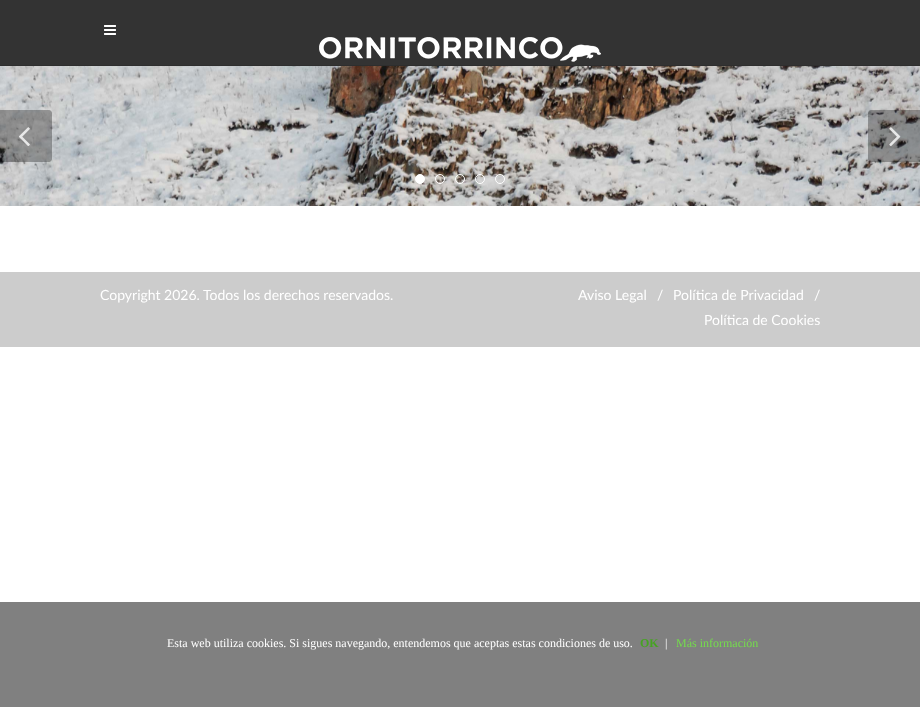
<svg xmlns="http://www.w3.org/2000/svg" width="920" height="707">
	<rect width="100%" height="100%" fill="#FFFFFF" />
	<rect x="0" y="0" width="920" height="65" fill="#333333" />
	<rect x="0" y="65" width="920" height="1" fill="#2E2E2E" />
	<image x="104" y="25" width="12" height="10" href="assets/img1.png" />
	<image x="319" y="37" width="282" height="25" href="assets/img2.png" />
	<image x="0" y="66" width="920" height="140" href="assets/img3.png" />
	<path d="M0 110H49C50.5 110 52 111.5 52 113V159C52 160.5 50.5 162 49 162H0Z" fill="#000000" fill-opacity="0.3" />
	<image x="19" y="127" width="11" height="19" href="assets/img4.png" />
	<path d="M871 110H920V162H871C869.5 162 868 160.5 868 159V113C868 111.5 869.5 110 871 110Z" fill="#000000" fill-opacity="0.3" />
	<image x="889" y="127" width="12" height="19" href="assets/img5.png" />
	<circle cx="420" cy="179" r="4.5" fill="#FFFFFF" stroke="#FFFFFF" />
	<circle cx="440" cy="179" r="4.5" fill="none" stroke="#FFFFFF" />
	<circle cx="460" cy="179" r="4.5" fill="none" stroke="#FFFFFF" />
	<circle cx="480" cy="179" r="4.5" fill="none" stroke="#FFFFFF" />
	<circle cx="500" cy="179" r="4.5" fill="none" stroke="#FFFFFF" />
	<rect x="0" y="272" width="920" height="75" fill="#CCCCCC" />
	<g font-family="Lato" font-size="14" fill="#FFFFFF">
		<text x="100" y="300">Copyright 2026. Todos los derechos reservados.</text>
		<text x="578" y="300">Aviso Legal</text>
		<text x="657" y="300">/</text>
		<text x="673" y="300">Política de Privacidad</text>
		<text x="814" y="300">/</text>
		<text x="704" y="325">Política de Cookies</text>
	</g>
	<rect x="0" y="602" width="920" height="105" fill="#808080" />
	<text x="167" y="647" font-family="Liberation Serif" font-size="12" fill="#FFFFFF">Esta web utiliza cookies. Si sigues navegando, entendemos que aceptas estas condiciones de uso.</text>
	<text x="640" y="647" font-family="Liberation Serif" font-size="12" font-weight="700" fill="#46A322">OK</text>
	<text x="665" y="647" font-family="Liberation Serif" font-size="12" fill="#FFFFFF">|</text>
	<text x="676" y="647" font-family="Liberation Serif" font-size="12" fill="#74DC4C">Más información</text>
</svg>
